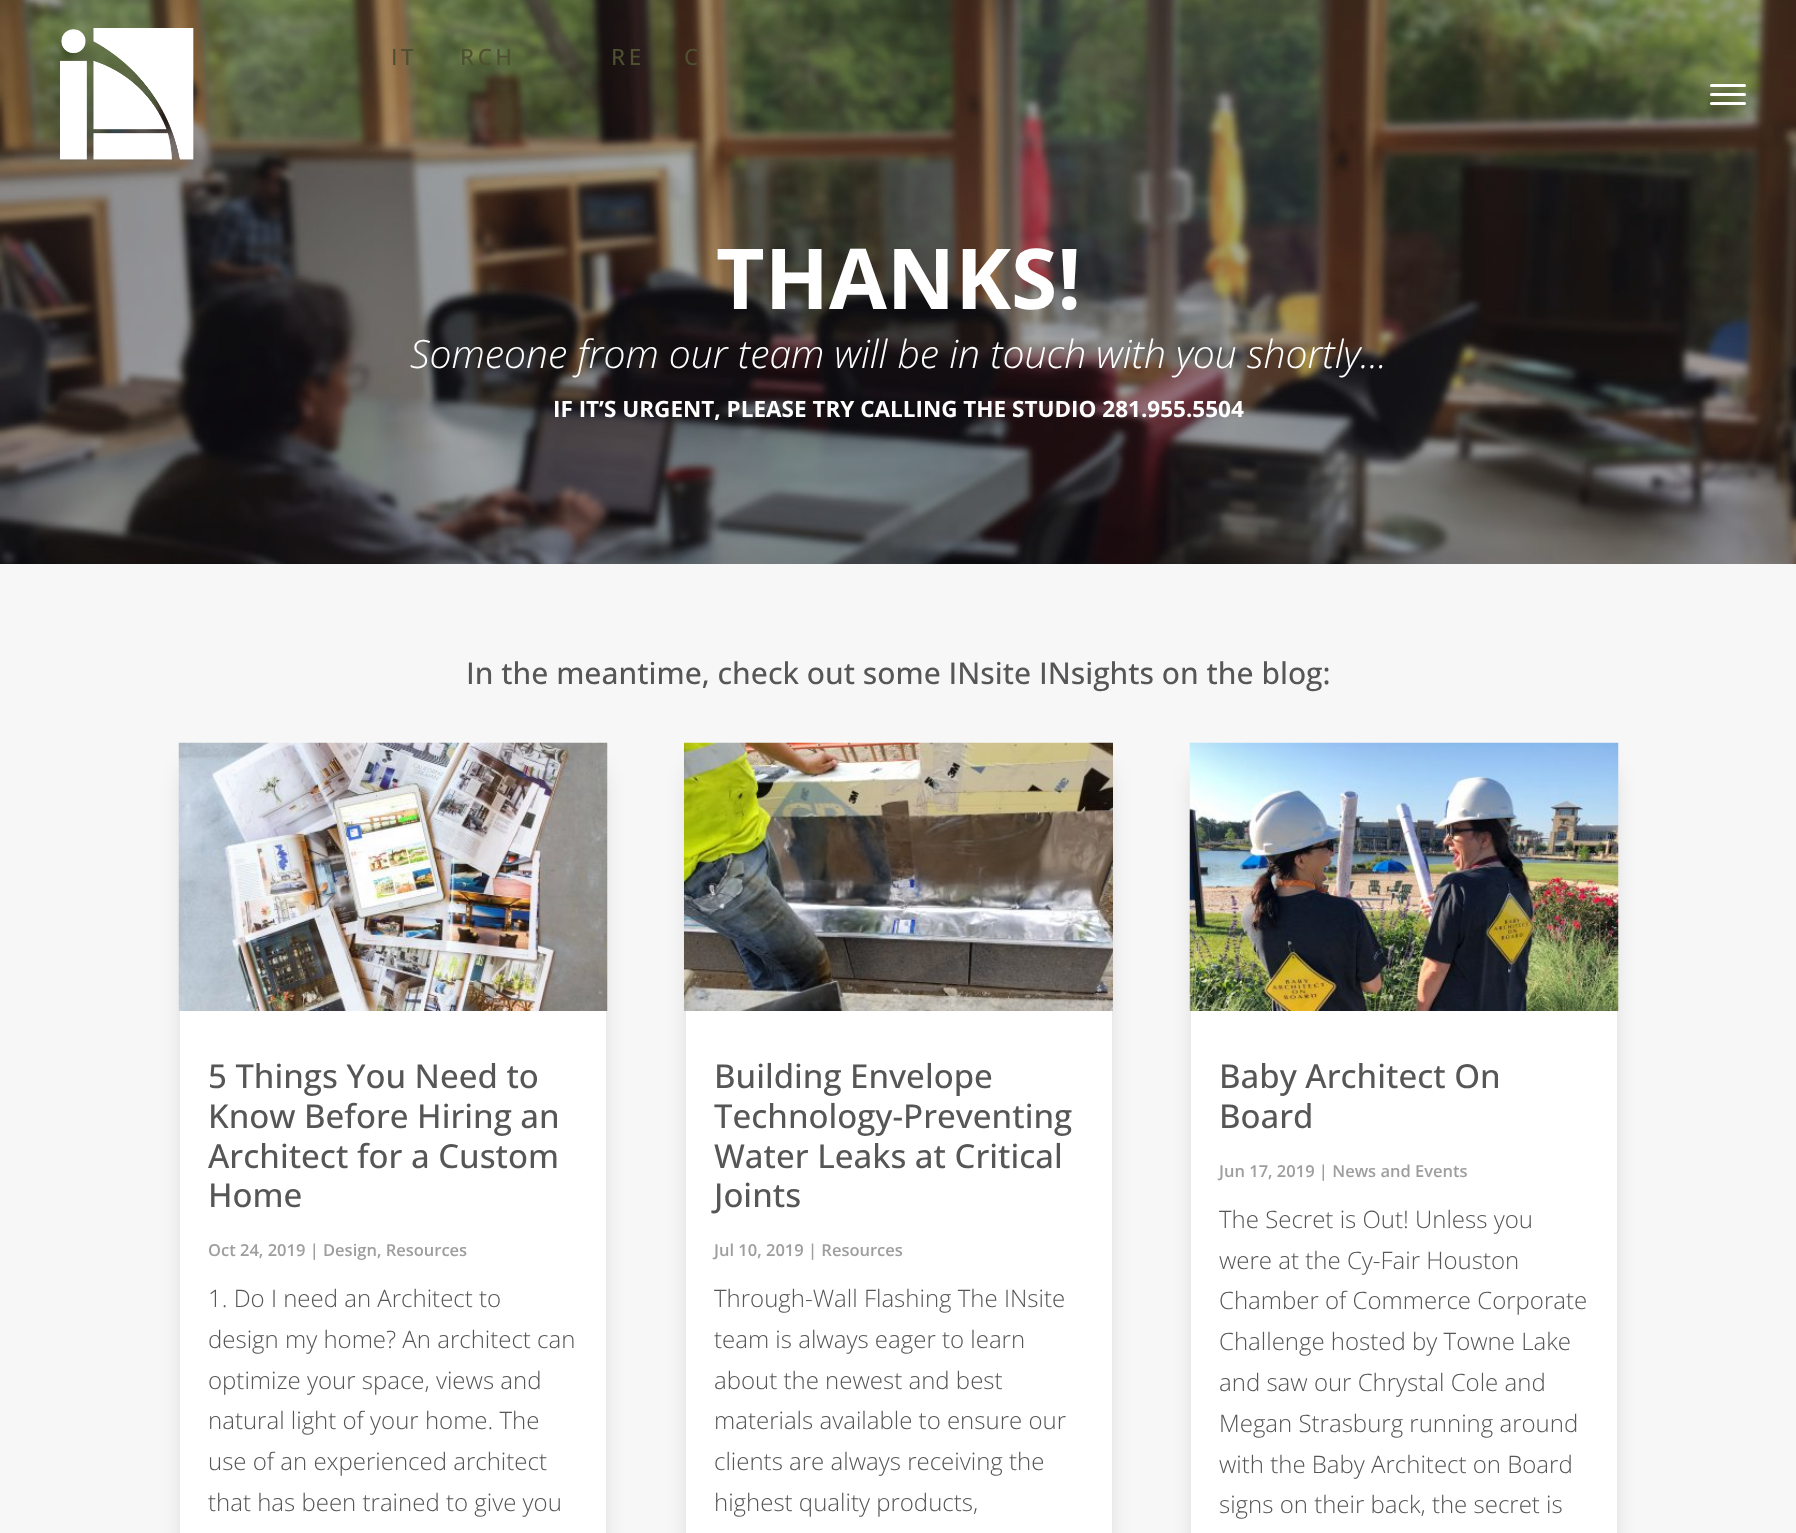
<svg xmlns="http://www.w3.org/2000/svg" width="1796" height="1533">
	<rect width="100%" height="100%" fill="#FFFFFF" />
	<image x="0" y="0" width="1796" height="564" href="assets/img2.png" />
	<image x="60" y="28" width="134" height="132" href="assets/img1.png" />
	<g font-family="Open Sans" font-size="22.5" font-weight="500" letter-spacing="3.5" fill="#4F4F31">
		<text x="391" y="65">IT</text>
		<text x="460" y="65">RCH</text>
		<text x="611" y="65">RE</text>
		<text x="684" y="65">C</text>
	</g>
	<rect x="1710" y="84" width="36" height="3" rx="1.5" fill="#FFFFFF" />
	<rect x="1710" y="93" width="36" height="3" rx="1.5" fill="#FFFFFF" />
	<rect x="1710" y="102" width="36" height="3" rx="1.5" fill="#FFFFFF" />
	<text x="716" y="309" font-family="Open Sans" font-size="84" font-weight="700" fill="#FFFFFF">THANKS!</text>
	<text x="410" y="368" font-family="Open Sans" font-size="39" font-weight="300" font-style="italic" fill="#FFFFFF">Someone from our team will be in touch with you shortly...</text>
	<text x="553" y="417" font-family="Open Sans" font-size="22.5" font-weight="700" fill="#FFFFFF">IF IT’S URGENT, PLEASE TRY CALLING THE STUDIO 281.955.5504</text>
	<rect x="0" y="564" width="1796" height="969" fill="#F7F7F7" />
	<text x="466" y="684" font-family="Open Sans" font-size="30" font-weight="500" fill="#565656">In the meantime, check out some INsite INsights on the blog:</text>
	<rect x="189" y="771" width="408" height="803" fill="#000000" fill-opacity="0.21" filter="blur(13.5px)" />
	<rect x="180" y="1011" width="426" height="522" fill="#FFFFFF" />
	<image x="178" y="742" width="430" height="269" href="assets/img3.png" />
	<g font-family="Open Sans" font-size="33" font-weight="500" fill="#565656">
		<text x="208" y="1088">5 Things You Need to</text>
		<text x="208" y="1128">Know Before Hiring an</text>
		<text x="208" y="1168">Architect for a Custom</text>
		<text x="208" y="1207">Home</text>
	</g>
	<text x="208" y="1256" font-family="Open Sans" font-size="16.5" font-weight="600" fill="#9E9E9E">Oct 24, 2019 | Design, Resources</text>
	<g font-family="Open Sans" font-size="24" font-weight="300" fill="#565656">
		<text x="208" y="1307">1. Do I need an Architect to</text>
		<text x="208" y="1348">design my home? An architect can</text>
		<text x="208" y="1389">optimize your space, views and</text>
		<text x="208" y="1429">natural light of your home. The</text>
		<text x="208" y="1470">use of an experienced architect</text>
		<text x="208" y="1511">that has been trained to give you</text>
	</g>
	<rect x="695" y="771" width="408" height="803" fill="#000000" fill-opacity="0.21" filter="blur(13.5px)" />
	<rect x="686" y="1011" width="426" height="522" fill="#FFFFFF" />
	<image x="684" y="742" width="429" height="269" href="assets/img4.png" />
	<g font-family="Open Sans" font-size="33" font-weight="500" fill="#565656">
		<text x="714" y="1088">Building Envelope</text>
		<text x="714" y="1128">Technology-Preventing</text>
		<text x="714" y="1168">Water Leaks at Critical</text>
		<text x="714" y="1207">Joints</text>
	</g>
	<text x="714" y="1256" font-family="Open Sans" font-size="16.5" font-weight="600" fill="#9E9E9E">Jul 10, 2019 | Resources</text>
	<g font-family="Open Sans" font-size="24" font-weight="300" fill="#565656">
		<text x="714" y="1307">Through-Wall Flashing The INsite</text>
		<text x="714" y="1348">team is always eager to learn</text>
		<text x="714" y="1389">about the newest and best</text>
		<text x="714" y="1429">materials available to ensure our</text>
		<text x="714" y="1470">clients are always receiving the</text>
		<text x="714" y="1511">highest quality products,</text>
	</g>
	<rect x="1200" y="771" width="408" height="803" fill="#000000" fill-opacity="0.21" filter="blur(13.5px)" />
	<rect x="1191" y="1011" width="426" height="522" fill="#FFFFFF" />
	<image x="1189" y="742" width="430" height="269" href="assets/img5.png" />
	<g font-family="Open Sans" font-size="33" font-weight="500" fill="#565656">
		<text x="1219" y="1088">Baby Architect On</text>
		<text x="1219" y="1128">Board</text>
	</g>
	<text x="1219" y="1177" font-family="Open Sans" font-size="16.5" font-weight="600" fill="#9E9E9E">Jun 17, 2019 | News and Events</text>
	<g font-family="Open Sans" font-size="24" font-weight="300" fill="#565656">
		<text x="1219" y="1228">The Secret is Out! Unless you</text>
		<text x="1219" y="1269">were at the Cy-Fair Houston</text>
		<text x="1219" y="1309">Chamber of Commerce Corporate</text>
		<text x="1219" y="1350">Challenge hosted by Towne Lake</text>
		<text x="1219" y="1391">and saw our Chrystal Cole and</text>
		<text x="1219" y="1432">Megan Strasburg running around</text>
		<text x="1219" y="1473">with the Baby Architect on Board</text>
		<text x="1219" y="1513">signs on their back, the secret is</text>
	</g>
</svg>
